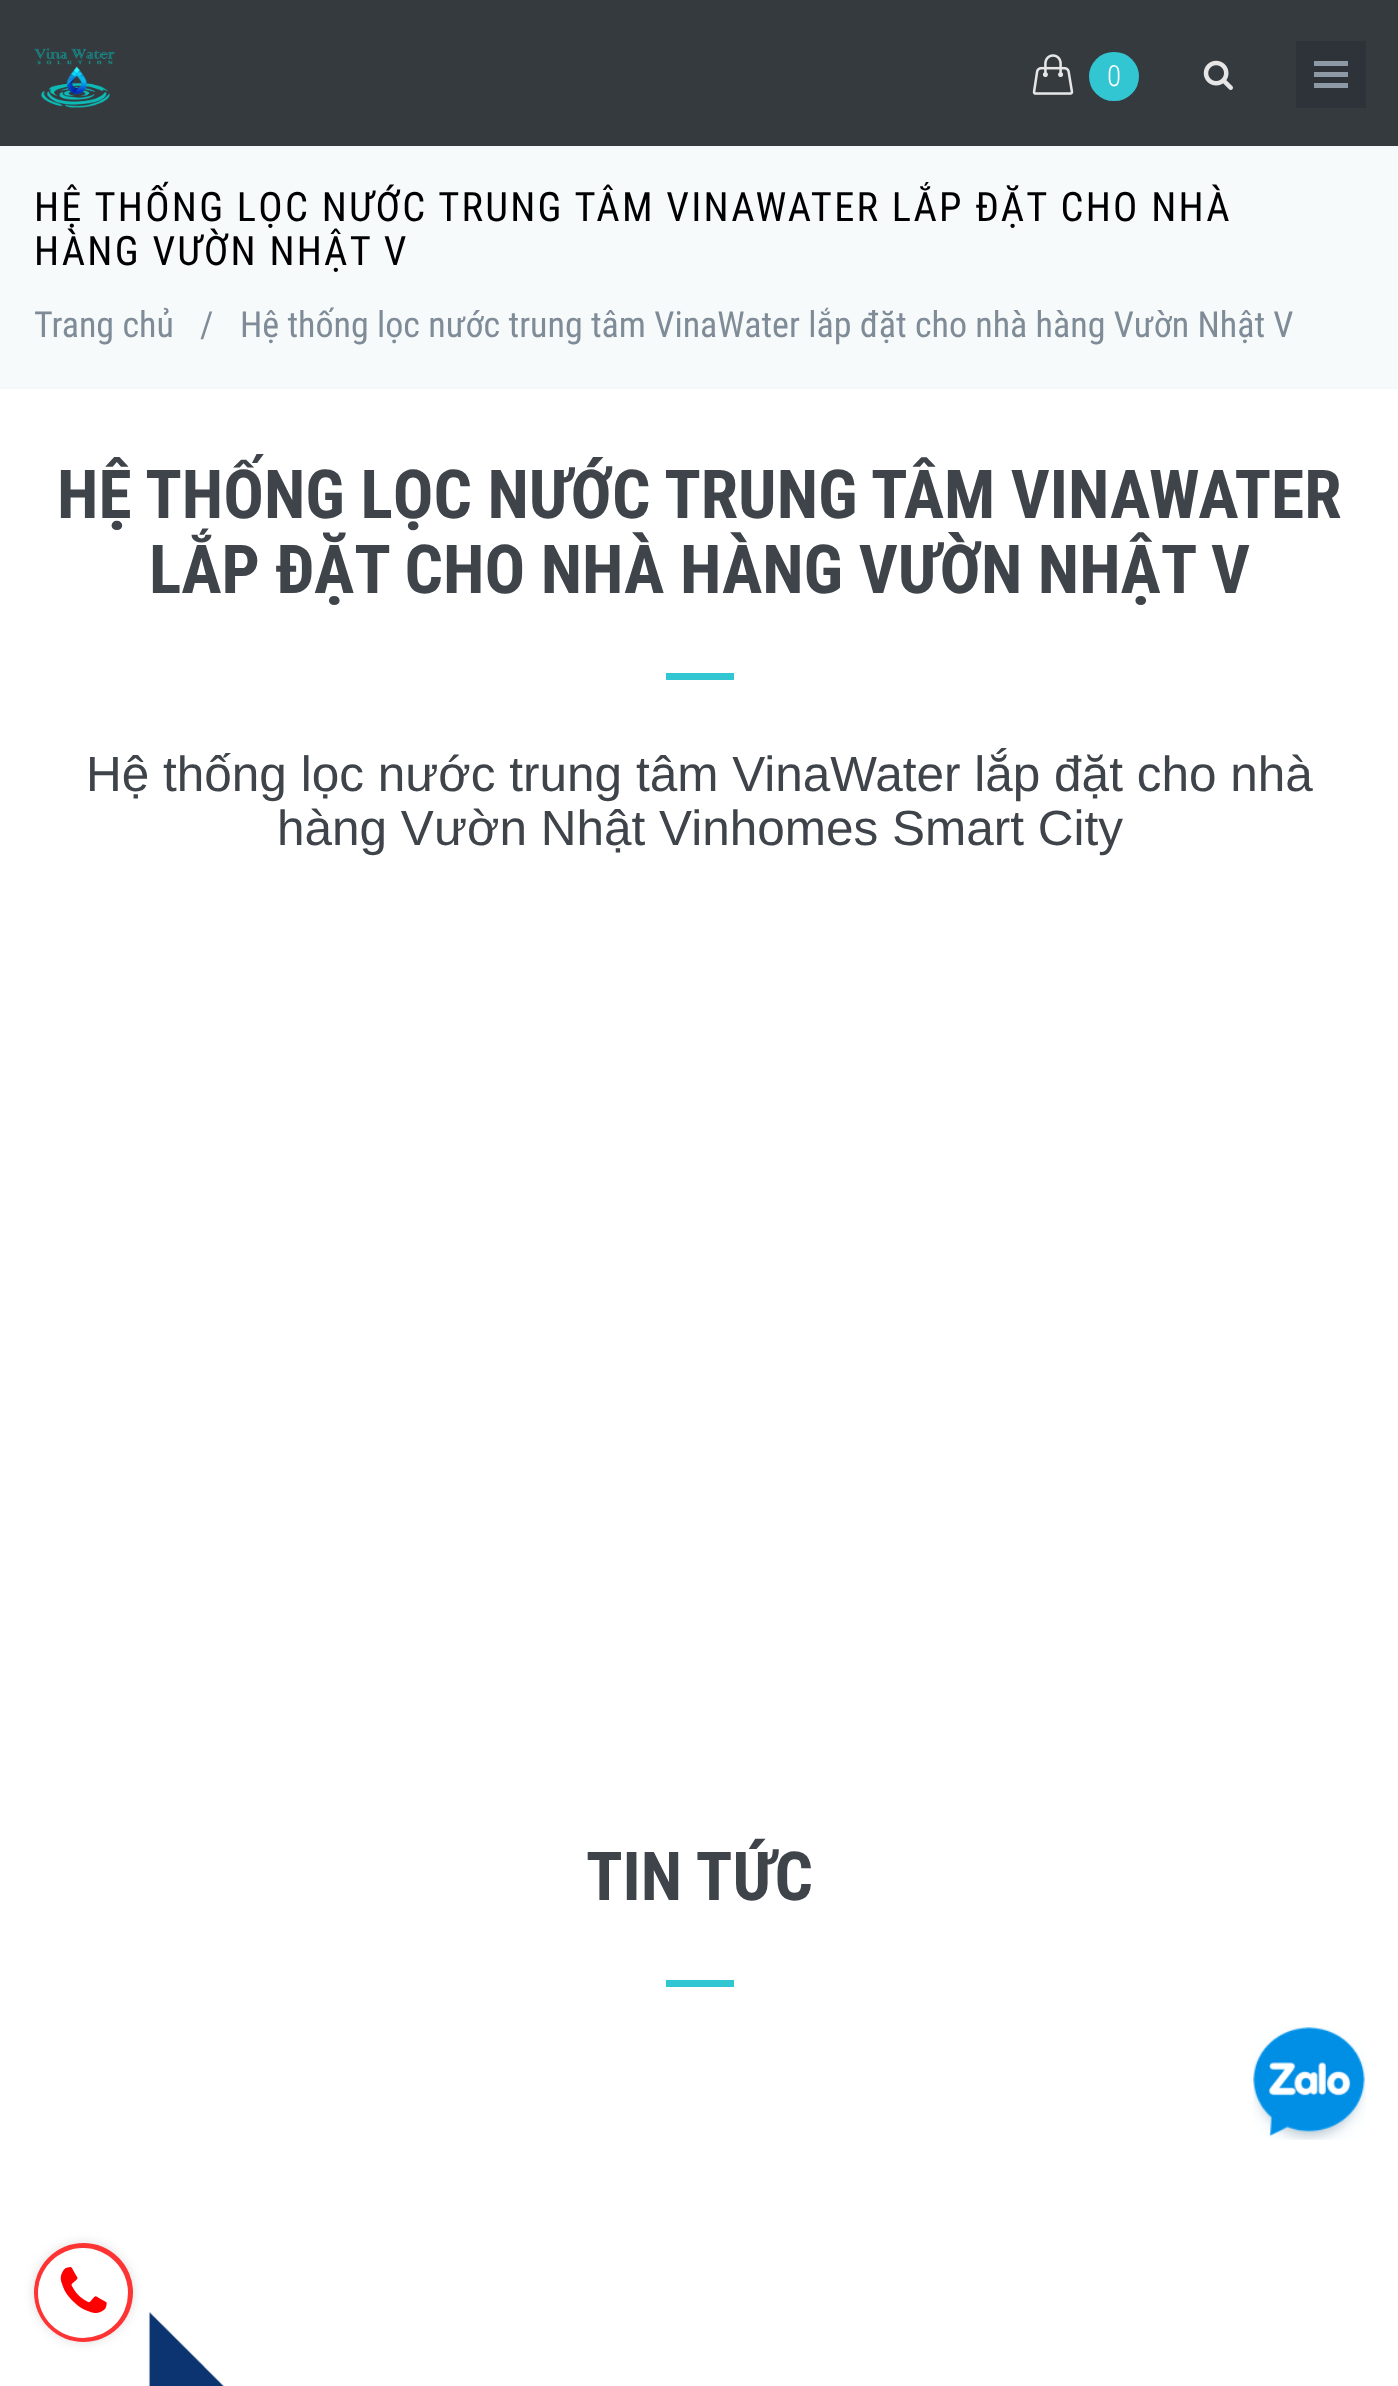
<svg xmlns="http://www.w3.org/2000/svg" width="1398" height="2386">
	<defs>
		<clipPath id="clip1"><path d="M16 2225H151V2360H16ZM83.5 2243C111 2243 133 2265 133 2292.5C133 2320 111 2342 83.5 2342C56 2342 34 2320 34 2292.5C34 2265 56 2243 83.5 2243Z" clip-rule="evenodd" /></clipPath>
	</defs>
	<rect width="100%" height="100%" fill="#FFFFFF" />
	<rect x="0" y="0" width="1398" height="146" fill="#353A3F" />
	<image x="34" y="48" width="82" height="60" href="assets/img1.png" />
	<image x="1032" y="54" width="42" height="41" href="assets/img2.png" />
	<rect x="1089" y="52" width="50" height="49" rx="24.5" fill="#32C5D2" />
	<text x="1107" y="86" font-family="Roboto Condensed" font-size="29" font-weight="300" fill="#FFFFFF">0</text>
	<image x="1203" y="60" width="30" height="30" href="assets/img3.png" />
	<rect x="1296" y="41" width="70" height="67" fill="#2E333A" />
	<rect x="1314" y="61" width="34" height="5" fill="#8E99A6" />
	<rect x="1314" y="72" width="34" height="5" fill="#8E99A6" />
	<rect x="1314" y="83" width="34" height="5" fill="#8E99A6" />
	<rect x="0" y="148" width="1398" height="239" fill="#F7FAFB" />
	<rect x="0" y="146" width="1398" height="2" fill="#F4F8F9" />
	<rect x="0" y="387" width="1398" height="2" fill="#F4F8F9" />
	<g font-family="Roboto Condensed" font-size="40.5" letter-spacing="2.25" fill="#000000">
		<text x="34" y="221">HỆ THỐNG LỌC NƯỚC TRUNG TÂM VINAWATER LẮP ĐẶT CHO NHÀ</text>
		<text x="34" y="265">HÀNG VƯỜN NHẬT V</text>
	</g>
	<g font-family="Roboto Condensed" font-size="36" fill="#7F8C97">
		<text x="34" y="337">Trang chủ</text>
		<text x="200" y="337">/</text>
		<text x="240" y="337">Hệ thống lọc nước trung tâm VinaWater lắp đặt cho nhà hàng Vườn Nhật V</text>
	</g>
	<g font-family="Roboto Condensed" font-size="67.5" font-weight="700" fill="#3F444A">
		<text x="57" y="518">HỆ THỐNG LỌC NƯỚC TRUNG TÂM VINAWATER</text>
		<text x="149" y="593">LẮP ĐẶT CHO NHÀ HÀNG VƯỜN NHẬT V</text>
	</g>
	<rect x="666" y="673" width="68" height="7" fill="#32C5D2" />
	<g font-family="Liberation Sans" font-size="49.5" fill="#3F444A">
		<text x="86" y="791">Hệ thống lọc nước trung tâm VinaWater lắp đặt cho nhà</text>
		<text x="277" y="845">hàng Vườn Nhật Vinhomes Smart City</text>
	</g>
	<text x="586" y="1900" font-family="Roboto Condensed" font-size="67.5" font-weight="700" fill="#3F444A">TIN TỨC</text>
	<rect x="666" y="1980" width="68" height="7" fill="#32C5D2" />
	<image x="148" y="2312" width="76" height="74" href="assets/img4.png" />
	<image x="1253" y="2027" width="113" height="113" href="assets/img5.png" />
	<g clip-path="url(#clip1)">
		<rect x="34" y="2243" width="99" height="99" rx="49.5" fill="#DDDDDD" filter="blur(5.5px)" />
	</g>
	<circle cx="83.5" cy="2292.5" r="49.5" fill="#FE0000" fill-opacity="0.8" />
	<circle cx="83" cy="2293" r="45" fill="#FFFFFF" />
	<image x="60" y="2267" width="47" height="46" href="assets/img6.png" />
</svg>
